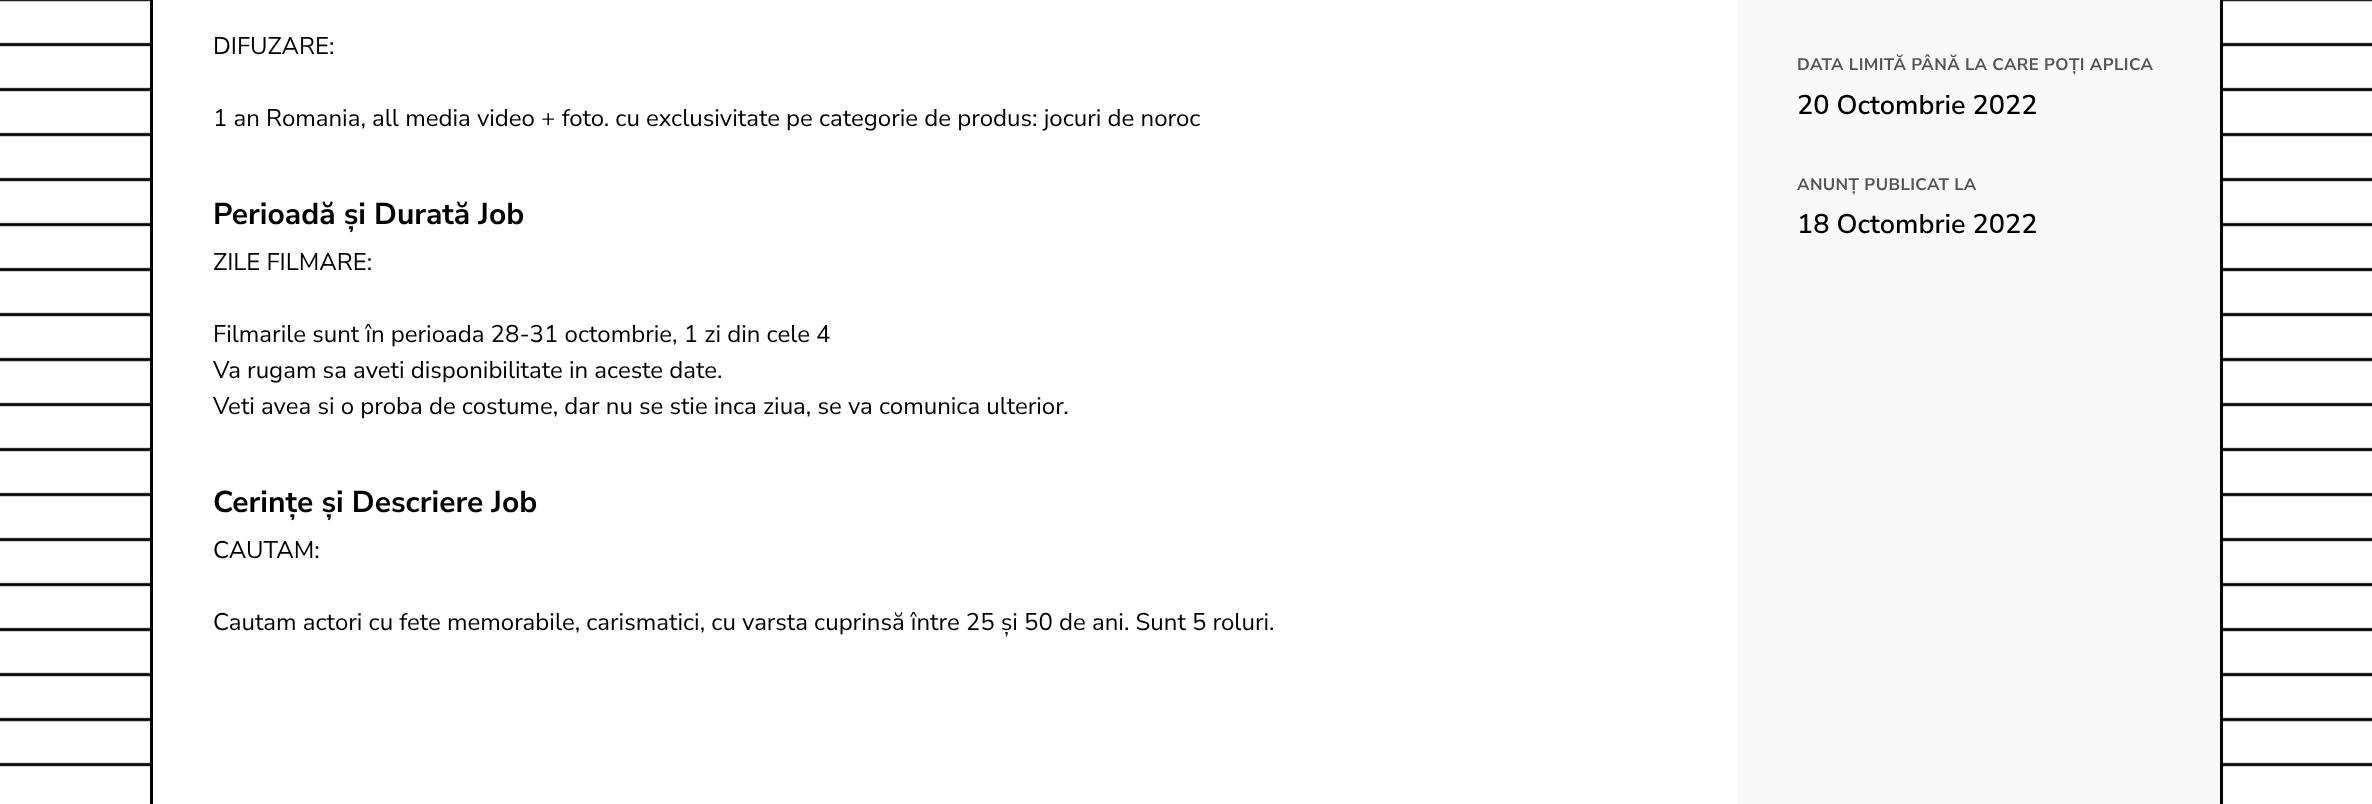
<svg xmlns="http://www.w3.org/2000/svg" width="2372" height="804">
	<rect width="100%" height="100%" fill="#FFFFFF" />
	<image x="0" y="0" width="2372" height="804" href="assets/img1.png" />
	<rect x="153" y="0" width="1584" height="767" fill="#FFFFFF" />
	<rect x="151.5" y="-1.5" width="2070" height="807" fill="none" stroke="#000000" stroke-width="3" />
	<g font-family="Nunito Sans" font-size="24" fill="#000000">
		<text x="213" y="54">DIFUZARE:</text>
		<text x="213" y="126">1 an Romania, all media video + foto. cu exclusivitate pe categorie de produs: jocuri de noroc</text>
	</g>
	<text x="213" y="224" font-family="Nunito Sans" font-size="30" font-weight="700" fill="#000000">Perioadă și Durată Job</text>
	<g font-family="Nunito Sans" font-size="24" fill="#000000">
		<text x="213" y="270">ZILE FILMARE:</text>
		<text x="213" y="342">Filmarile sunt în perioada 28-31 octombrie, 1 zi din cele 4</text>
		<text x="213" y="378">Va rugam sa aveti disponibilitate in aceste date.</text>
		<text x="213" y="414">Veti avea si o proba de costume, dar nu se stie inca ziua, se va comunica ulterior.</text>
	</g>
	<text x="213" y="512" font-family="Nunito Sans" font-size="30" font-weight="700" fill="#000000">Cerințe și Descriere Job</text>
	<g font-family="Nunito Sans" font-size="24" fill="#000000">
		<text x="213" y="558">CAUTAM:</text>
		<text x="213" y="630">Cautam actori cu fete memorabile, carismatici, cu varsta cuprinsă între 25 și 50 de ani. Sunt 5 roluri.</text>
	</g>
	<rect x="1737" y="0" width="483" height="804" fill="#F9F9F9" />
	<text x="1797" y="70" font-family="Nunito Sans" font-size="16.8" font-weight="700" letter-spacing="0.4" fill="#555555">DATA LIMITĂ PÂNĂ LA CARE POȚI APLICA</text>
	<text x="1797" y="114" font-family="Nunito Sans" font-size="27" font-weight="600" fill="#000000">20 Octombrie 2022</text>
	<text x="1797" y="190" font-family="Nunito Sans" font-size="16.8" font-weight="700" letter-spacing="0.4" fill="#555555">ANUNȚ PUBLICAT LA</text>
	<text x="1797" y="233" font-family="Nunito Sans" font-size="27" font-weight="600" fill="#000000">18 Octombrie 2022</text>
</svg>
